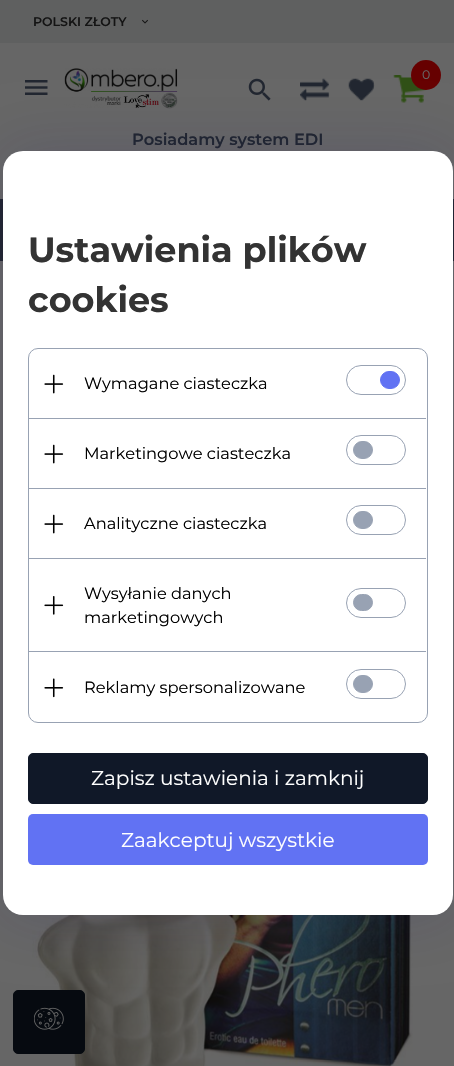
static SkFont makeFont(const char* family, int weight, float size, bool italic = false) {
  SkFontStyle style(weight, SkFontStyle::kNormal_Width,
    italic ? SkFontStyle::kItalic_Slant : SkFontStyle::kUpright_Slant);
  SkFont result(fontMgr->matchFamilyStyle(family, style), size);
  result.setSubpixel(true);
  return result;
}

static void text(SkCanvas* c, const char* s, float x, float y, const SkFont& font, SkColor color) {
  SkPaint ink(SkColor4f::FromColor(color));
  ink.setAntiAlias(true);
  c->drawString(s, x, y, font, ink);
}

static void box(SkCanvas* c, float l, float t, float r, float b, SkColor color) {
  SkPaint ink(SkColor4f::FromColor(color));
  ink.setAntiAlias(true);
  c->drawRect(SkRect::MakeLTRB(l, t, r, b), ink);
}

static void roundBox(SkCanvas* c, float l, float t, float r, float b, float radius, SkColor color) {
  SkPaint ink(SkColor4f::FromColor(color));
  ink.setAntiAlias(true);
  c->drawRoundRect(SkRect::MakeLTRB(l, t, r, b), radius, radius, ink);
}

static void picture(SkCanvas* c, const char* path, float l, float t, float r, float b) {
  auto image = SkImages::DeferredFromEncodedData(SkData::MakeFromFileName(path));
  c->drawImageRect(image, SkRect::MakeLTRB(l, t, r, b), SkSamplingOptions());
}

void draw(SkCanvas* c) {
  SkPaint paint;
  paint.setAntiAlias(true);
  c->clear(0xff666666);
  box(c, 0, 0, 454, 43, 0xff5f6060);
  SkFont face1 = makeFont("Montserrat", 600, 12.5f);
  text(c, "POLSKI ZŁOTY", 33, 26, face1, 0xff141414);
  picture(c, "img_01.png", 142, 19, 148, 24);
  picture(c, "img_02.png", 25, 80, 48, 95);
  picture(c, "img_03.png", 64, 68, 178, 109);
  picture(c, "img_04.png", 393, 75, 427, 103);
  paint.setColor(0xff660000);
  c->drawCircle(426, 75, 15, paint);
  SkFont face2 = makeFont("Montserrat", 400, 12.5f);
  text(c, "0", 422, 79, face2, 0xff666666);
  picture(c, "img_05.png", 300, 78, 330, 101);
  picture(c, "img_06.png", 348, 78, 375, 101);
  picture(c, "img_07.png", 248, 78, 271, 101);
  SkFont face3 = makeFont("Montserrat", 600, 16.25f);
  text(c, "Posiadamy system EDI", 132, 145, face3, 0xff20252f);
  box(c, 0, 199, 454, 261, 0xff20252f);
  picture(c, "img_08.png", 32, 915, 413, 1066);
  paint.setColor(0xff060a10);
  c->drawRoundRect(SkRect::MakeLTRB(13.5f, 990.5f, 84.5f, 1053.5f), 4.5f, 4.5f, paint);
  paint.setStyle(SkPaint::kStroke_Style);
  paint.setStrokeWidth(1);
  c->drawRoundRect(SkRect::MakeLTRB(13.5f, 990.5f, 84.5f, 1053.5f), 4.5f, 4.5f, paint);
  paint.setStyle(SkPaint::kFill_Style);
  paint.setColor(0x26211a69);
  paint.setMaskFilter(SkMaskFilter::MakeBlur(kNormal_SkBlurStyle, 30));
  c->drawRoundRect(SkRect::MakeLTRB(3, 151, 453, 915), 20, 20, paint);
  paint.setMaskFilter(nullptr);
  roundBox(c, 3, 151, 453, 915, 20, 0xffffffff);
  SkFont face4 = makeFont("Montserrat", 700, 35);
  text(c, "Ustawienia plików", 28, 262, face4, 0xff333333);
  text(c, "cookies", 28, 312, face4, 0xff333333);
  paint.setStyle(SkPaint::kStroke_Style);
  paint.setColor(0xff98a2b3);
  c->drawRoundRect(SkRect::MakeLTRB(28.5f, 348.5f, 427.5f, 722.5f), 9.5f, 9.5f, paint);
  picture(c, "img_09.png", 44, 374, 64, 394);
  SkFont face5 = makeFont("Montserrat", 400, 16.25f);
  text(c, "Wymagane ciasteczka", 84, 389, face5, 0xff000000);
  c->drawRoundRect(SkRect::MakeLTRB(346.5f, 365.5f, 405.5f, 394.5f), 14.5f, 14.5f, paint);
  paint.setStyle(SkPaint::kFill_Style);
  paint.setColor(0xff6172f3);
  c->drawRoundRect(SkRect::MakeLTRB(380.5f, 371.5f, 399.5f, 388.5f), 8.5f, 8.5f, paint);
  paint.setStyle(SkPaint::kStroke_Style);
  c->drawRoundRect(SkRect::MakeLTRB(380.5f, 371.5f, 399.5f, 388.5f), 8.5f, 8.5f, paint);
  box(c, 29, 418, 426, 419, 0xff98a2b3);
  picture(c, "img_09.png", 44, 444, 64, 464);
  text(c, "Marketingowe ciasteczka", 84, 459, face5, 0xff000000);
  paint.setColor(0xff98a2b3);
  c->drawRoundRect(SkRect::MakeLTRB(346.5f, 435.5f, 405.5f, 464.5f), 14.5f, 14.5f, paint);
  paint.setStyle(SkPaint::kFill_Style);
  c->drawRoundRect(SkRect::MakeLTRB(353.5f, 441.5f, 372.5f, 458.5f), 8.5f, 8.5f, paint);
  paint.setStyle(SkPaint::kStroke_Style);
  c->drawRoundRect(SkRect::MakeLTRB(353.5f, 441.5f, 372.5f, 458.5f), 8.5f, 8.5f, paint);
  box(c, 29, 488, 426, 489, 0xff98a2b3);
  picture(c, "img_09.png", 44, 514, 64, 534);
  text(c, "Analityczne ciasteczka", 84, 529, face5, 0xff000000);
  c->drawRoundRect(SkRect::MakeLTRB(346.5f, 505.5f, 405.5f, 534.5f), 14.5f, 14.5f, paint);
  paint.setStyle(SkPaint::kFill_Style);
  c->drawRoundRect(SkRect::MakeLTRB(353.5f, 511.5f, 372.5f, 528.5f), 8.5f, 8.5f, paint);
  paint.setStyle(SkPaint::kStroke_Style);
  c->drawRoundRect(SkRect::MakeLTRB(353.5f, 511.5f, 372.5f, 528.5f), 8.5f, 8.5f, paint);
  box(c, 29, 558, 426, 559, 0xff98a2b3);
  picture(c, "img_10.png", 44, 596, 64, 615);
  text(c, "Wysyłanie danych", 84, 599, face5, 0xff000000);
  text(c, "marketingowych", 84, 623, face5, 0xff000000);
  c->drawRoundRect(SkRect::MakeLTRB(346.5f, 588.5f, 405.5f, 617.5f), 14.5f, 14.5f, paint);
  paint.setStyle(SkPaint::kFill_Style);
  c->drawRoundRect(SkRect::MakeLTRB(353.5f, 594.5f, 372.5f, 610.5f), 8, 8, paint);
  paint.setStyle(SkPaint::kStroke_Style);
  c->drawRoundRect(SkRect::MakeLTRB(353.5f, 594.5f, 372.5f, 610.5f), 8, 8, paint);
  box(c, 29, 651, 426, 652, 0xff98a2b3);
  picture(c, "img_11.png", 44, 678, 64, 698);
  text(c, "Reklamy spersonalizowane", 84, 693, face5, 0xff000000);
  c->drawRoundRect(SkRect::MakeLTRB(346.5f, 669.5f, 405.5f, 698.5f), 14.5f, 14.5f, paint);
  paint.setStyle(SkPaint::kFill_Style);
  c->drawRoundRect(SkRect::MakeLTRB(353.5f, 675.5f, 372.5f, 692.5f), 8.5f, 8.5f, paint);
  paint.setStyle(SkPaint::kStroke_Style);
  c->drawRoundRect(SkRect::MakeLTRB(353.5f, 675.5f, 372.5f, 692.5f), 8.5f, 8.5f, paint);
  paint.setStyle(SkPaint::kFill_Style);
  paint.setColor(0xff101828);
  c->drawRoundRect(SkRect::MakeLTRB(28.5f, 753.5f, 427.5f, 803.5f), 4.5f, 4.5f, paint);
  paint.setStyle(SkPaint::kStroke_Style);
  c->drawRoundRect(SkRect::MakeLTRB(28.5f, 753.5f, 427.5f, 803.5f), 4.5f, 4.5f, paint);
  SkFont face6 = makeFont("Montserrat", 400, 20);
  text(c, "Zapisz ustawienia i zamknij", 91, 785, face6, 0xffffffff);
  roundBox(c, 28, 814, 428, 865, 5, 0xff6172f3);
  text(c, "Zaakceptuj wszystkie", 121, 847, face6, 0xffffffff);
  picture(c, "img_12.png", 34, 1007, 64, 1030);
}
